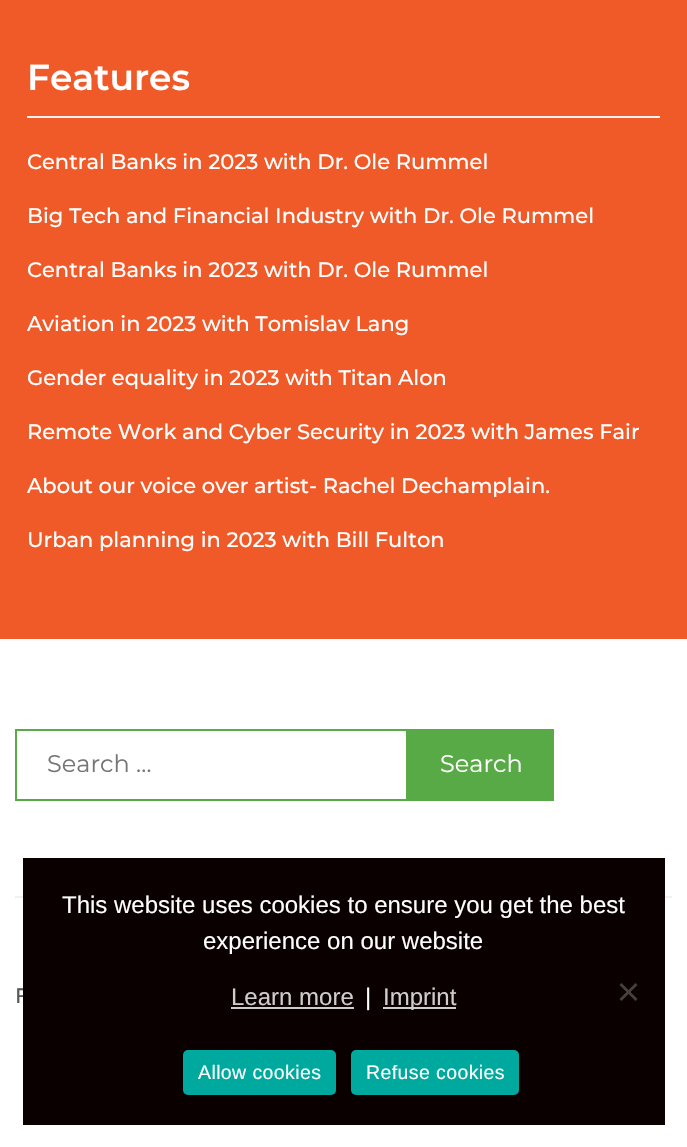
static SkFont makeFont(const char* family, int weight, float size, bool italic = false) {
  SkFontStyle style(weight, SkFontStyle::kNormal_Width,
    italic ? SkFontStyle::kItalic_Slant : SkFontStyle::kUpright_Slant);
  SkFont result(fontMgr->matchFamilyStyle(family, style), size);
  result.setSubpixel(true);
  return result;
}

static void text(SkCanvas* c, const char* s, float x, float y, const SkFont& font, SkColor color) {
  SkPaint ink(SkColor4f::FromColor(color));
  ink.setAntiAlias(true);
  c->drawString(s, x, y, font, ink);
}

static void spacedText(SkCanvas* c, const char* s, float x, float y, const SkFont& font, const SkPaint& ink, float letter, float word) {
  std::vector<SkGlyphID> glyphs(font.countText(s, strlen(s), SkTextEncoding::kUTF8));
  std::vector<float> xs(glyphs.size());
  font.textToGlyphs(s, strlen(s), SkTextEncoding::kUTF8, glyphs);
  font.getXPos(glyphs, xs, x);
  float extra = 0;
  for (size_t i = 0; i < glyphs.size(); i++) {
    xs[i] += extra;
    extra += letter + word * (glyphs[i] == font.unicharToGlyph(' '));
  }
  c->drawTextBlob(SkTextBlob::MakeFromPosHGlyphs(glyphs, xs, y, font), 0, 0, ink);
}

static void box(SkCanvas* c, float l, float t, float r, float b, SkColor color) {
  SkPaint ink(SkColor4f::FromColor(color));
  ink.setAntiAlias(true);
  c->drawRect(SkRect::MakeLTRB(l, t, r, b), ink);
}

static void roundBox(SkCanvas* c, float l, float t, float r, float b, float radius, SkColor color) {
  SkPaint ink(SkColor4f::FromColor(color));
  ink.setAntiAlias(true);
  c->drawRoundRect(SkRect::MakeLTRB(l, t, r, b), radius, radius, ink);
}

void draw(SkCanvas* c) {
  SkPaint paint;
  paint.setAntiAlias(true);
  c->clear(0xffffffff);
  box(c, 0, 0, 687, 639, 0xfff05a28);
  box(c, 27, 116, 660, 118, 0xfff0f0f0);
  SkFont face1 = makeFont("Montserrat", 600, 36);
  text(c, "Features", 27, 90, face1, 0xffffffff);
  SkFont face2 = makeFont("Montserrat", 500, 21);
  text(c, "Central Banks in 2023 with Dr. Ole Rummel", 27, 169, face2, 0xffffffff);
  text(c, "Big Tech and Financial Industry with Dr. Ole Rummel", 27, 223, face2, 0xffffffff);
  text(c, "Central Banks in 2023 with Dr. Ole Rummel", 27, 277, face2, 0xffffffff);
  text(c, "Aviation in 2023 with Tomislav Lang", 27, 331, face2, 0xffffffff);
  text(c, "Gender equality in 2023 with Titan Alon", 27, 385, face2, 0xffffffff);
  text(c, "Remote Work and Cyber Security in 2023 with James Fair", 27, 439, face2, 0xffffffff);
  text(c, "About our voice over artist- Rachel Dechamplain.", 27, 493, face2, 0xffffffff);
  text(c, "Urban planning in 2023 with Bill Fulton", 27, 547, face2, 0xffffffff);
  paint.setStyle(SkPaint::kStroke_Style);
  paint.setStrokeWidth(2);
  paint.setColor(0xff58aa47);
  c->drawRect(SkRect::MakeLTRB(16, 730, 407, 800), paint);
  SkFont face3 = makeFont("Montserrat", 400, 24);
  text(c, "Search …", 47, 772, face3, 0xff757575);
  box(c, 408, 729, 554, 801, 0xff58aa47);
  text(c, "Search", 440, 772, face3, 0xffffffff);
  box(c, 15, 896, 672, 898, 0xfff0f0f0);
  text(c, "F", 15, 1003, face2, 0xff585858);
  box(c, 23, 858, 665, 1125, 0xff0a0000);
  SkFont face4 = makeFont("Liberation Sans", 400, 24);
  text(c, "This website uses cookies to ensure you get the best", 62, 913, face4, 0xffffffff);
  text(c, "experience on our website", 203, 949, face4, 0xffffffff);
  text(c, "Learn more", 231, 1005, face4, 0xffcecccc);
  box(c, 231, 1007, 354, 1009, 0xffcecccc);
  text(c, "|", 365, 1005, face4, 0xffffffff);
  box(c, 383, 1007, 456, 1009, 0xffcecccc);
  text(c, "Imprint", 383, 1005, face4, 0xffcecccc);
  paint.setStyle(SkPaint::kFill_Style);
  paint.setColor(0xff454040);
  c->drawPath(SkPathBuilder().moveTo(635.5f, 983).lineTo(637.5f, 985).lineTo(621.5f, 1001).lineTo(619.5f, 999).close().detach(), paint);
  c->drawPath(SkPathBuilder().moveTo(619.5f, 985).lineTo(621.5f, 983).lineTo(637.5f, 999).lineTo(635.5f, 1001).close().detach(), paint);
  roundBox(c, 183, 1050, 336, 1095, 5, 0xff00a99d);
  SkFont face5 = makeFont("Liberation Sans", 400, 19.5f);
  paint.setColor(0xffffffff);
  spacedText(c, "Allow cookies", 198, 1079, face5, paint, 0.4f, 0);
  roundBox(c, 351, 1050, 519, 1095, 5, 0xff00a99d);
  spacedText(c, "Refuse cookies", 366, 1079, face5, paint, 0.4f, 0);
}
